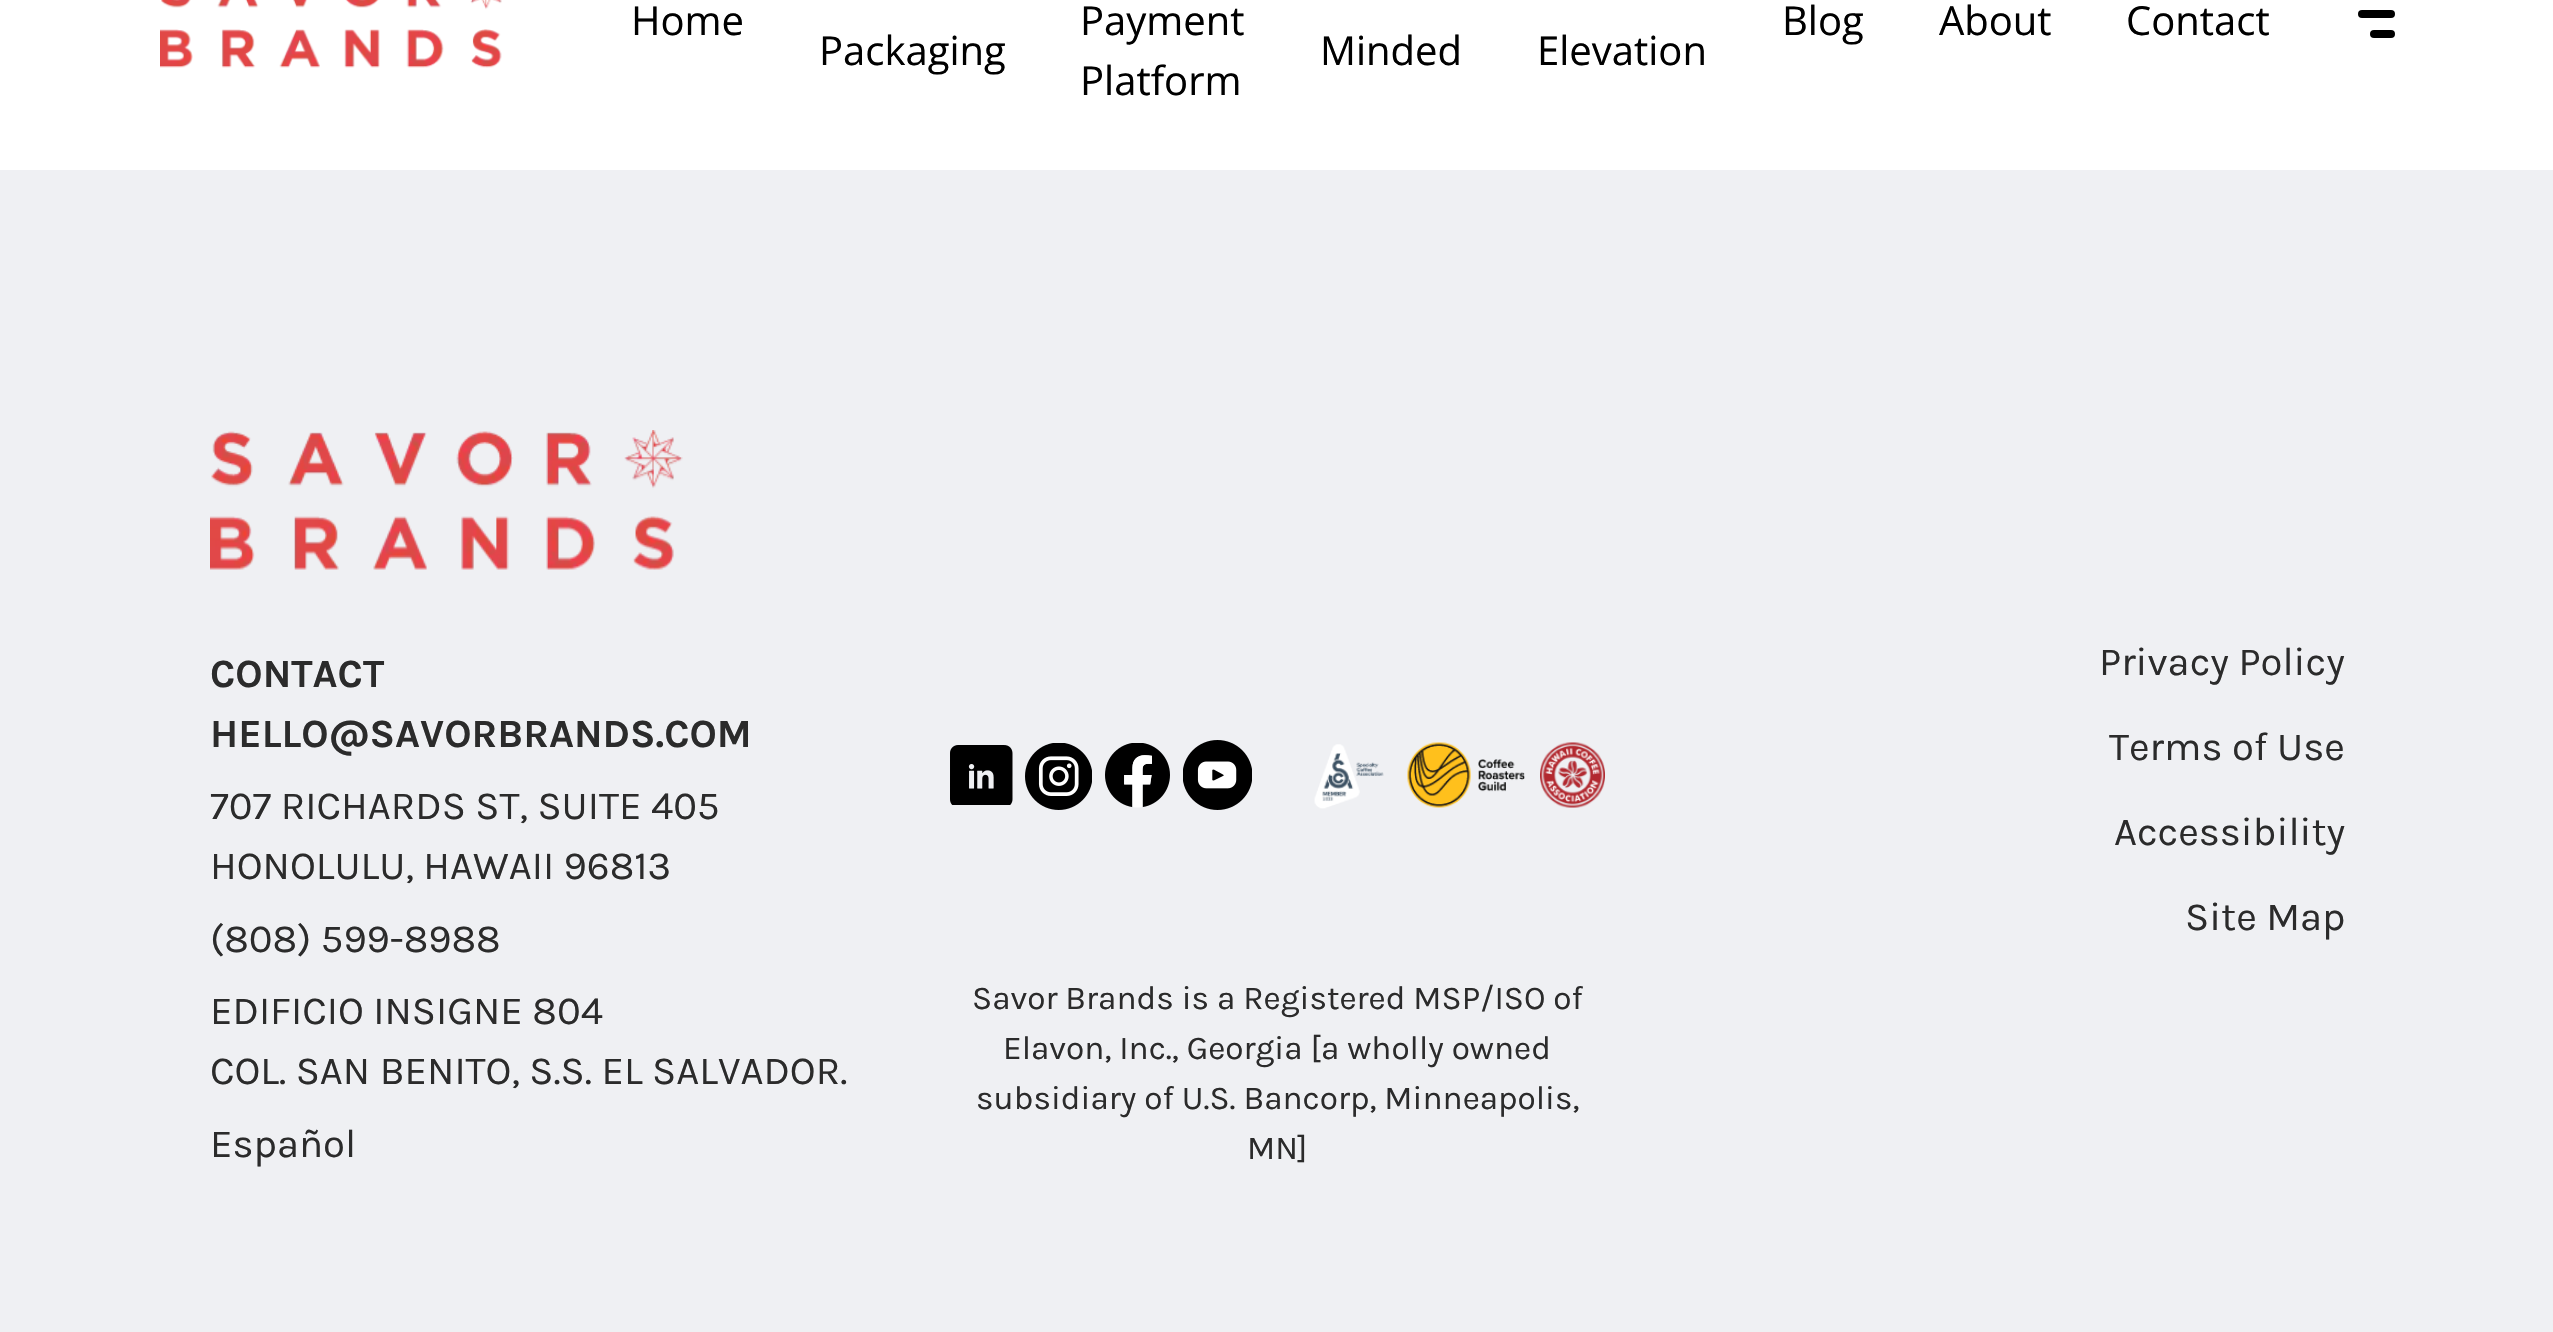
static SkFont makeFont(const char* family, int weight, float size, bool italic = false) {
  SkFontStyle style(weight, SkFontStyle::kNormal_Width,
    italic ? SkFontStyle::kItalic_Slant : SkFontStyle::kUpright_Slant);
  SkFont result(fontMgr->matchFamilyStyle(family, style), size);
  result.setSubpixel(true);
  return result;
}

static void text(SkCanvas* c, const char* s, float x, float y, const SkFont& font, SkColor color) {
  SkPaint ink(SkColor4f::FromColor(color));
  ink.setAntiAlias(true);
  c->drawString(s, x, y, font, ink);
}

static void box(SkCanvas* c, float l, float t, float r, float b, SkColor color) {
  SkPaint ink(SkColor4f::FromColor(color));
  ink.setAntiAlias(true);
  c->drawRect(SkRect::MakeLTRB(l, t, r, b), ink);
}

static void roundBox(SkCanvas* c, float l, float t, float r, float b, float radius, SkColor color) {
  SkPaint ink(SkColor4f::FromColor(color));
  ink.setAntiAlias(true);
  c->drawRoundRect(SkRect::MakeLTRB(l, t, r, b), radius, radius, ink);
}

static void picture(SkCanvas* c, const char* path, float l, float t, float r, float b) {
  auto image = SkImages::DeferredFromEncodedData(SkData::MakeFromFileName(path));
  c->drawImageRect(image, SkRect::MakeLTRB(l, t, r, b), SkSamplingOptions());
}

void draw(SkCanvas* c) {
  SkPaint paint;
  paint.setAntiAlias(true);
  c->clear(0xffeff0f3);
  box(c, 0, 0, 2553, 170, 0xffffffff);
  picture(c, "img_01.png", 160, 0, 502, 68);
  SkFont face1 = makeFont("Open Sans", 400, 40);
  text(c, "Home", 631, 35, face1, 0xff000000);
  text(c, "Payment", 1080, 35, face1, 0xff000000);
  text(c, "Platform", 1080, 95, face1, 0xff000000);
  text(c, "Blog", 1782, 35, face1, 0xff000000);
  text(c, "About", 1939, 35, face1, 0xff000000);
  text(c, "Contact", 2126, 35, face1, 0xff000000);
  roundBox(c, 2358, 10, 2395, 18, 4, 0xff000000);
  roundBox(c, 2370, 30, 2395, 38, 4, 0xff000000);
  text(c, "Packaging", 819, 65, face1, 0xff000000);
  text(c, "Minded", 1320, 65, face1, 0xff000000);
  text(c, "Elevation", 1537, 65, face1, 0xff000000);
  picture(c, "img_02.png", 210, 430, 683, 570);
  SkFont face2 = makeFont("Karla", 700, 40);
  text(c, "CONTACT", 210, 687, face2, 0xff2b2b2b);
  text(c, "HELLO@SAVORBRANDS.COM", 210, 747, face2, 0xff2b2b2b);
  SkFont face3 = makeFont("Karla", 400, 40);
  text(c, "707 RICHARDS ST, SUITE 405", 210, 819, face3, 0xff2b2b2b);
  text(c, "HONOLULU, HAWAII 96813", 210, 879, face3, 0xff2b2b2b);
  text(c, "(808) 599-8988", 210, 952, face3, 0xff2b2b2b);
  text(c, "EDIFICIO INSIGNE 804", 210, 1024, face3, 0xff2b2b2b);
  text(c, "COL. SAN BENITO, S.S. EL SALVADOR.", 210, 1084, face3, 0xff2b2b2b);
  text(c, "Español", 210, 1157, face3, 0xff2b2b2b);
  picture(c, "img_03.png", 950, 745, 1013, 805);
  picture(c, "img_04.png", 1025, 743, 1092, 810);
  picture(c, "img_05.png", 1105, 743, 1170, 808);
  picture(c, "img_06.png", 1183, 740, 1252, 810);
  picture(c, "img_07.png", 1314, 744, 1384, 809);
  picture(c, "img_08.png", 1407, 742, 1525, 808);
  picture(c, "img_09.png", 1540, 742, 1605, 808);
  SkFont face4 = makeFont("Karla", 400, 33.3f);
  text(c, "Savor Brands is a Registered MSP/ISO of", 972, 1009, face4, 0xff2b2b2b);
  text(c, "Elavon, Inc., Georgia [a wholly owned", 1003, 1059, face4, 0xff2b2b2b);
  text(c, "subsidiary of U.S. Bancorp, Minneapolis,", 976, 1109, face4, 0xff2b2b2b);
  text(c, "MN]", 1247, 1159, face4, 0xff2b2b2b);
  text(c, "Privacy Policy", 2099, 675, face3, 0xff2b2b2b);
  text(c, "Terms of Use", 2109, 760, face3, 0xff2b2b2b);
  text(c, "Accessibility", 2114, 845, face3, 0xff2b2b2b);
  text(c, "Site Map", 2185, 930, face3, 0xff2b2b2b);
}
